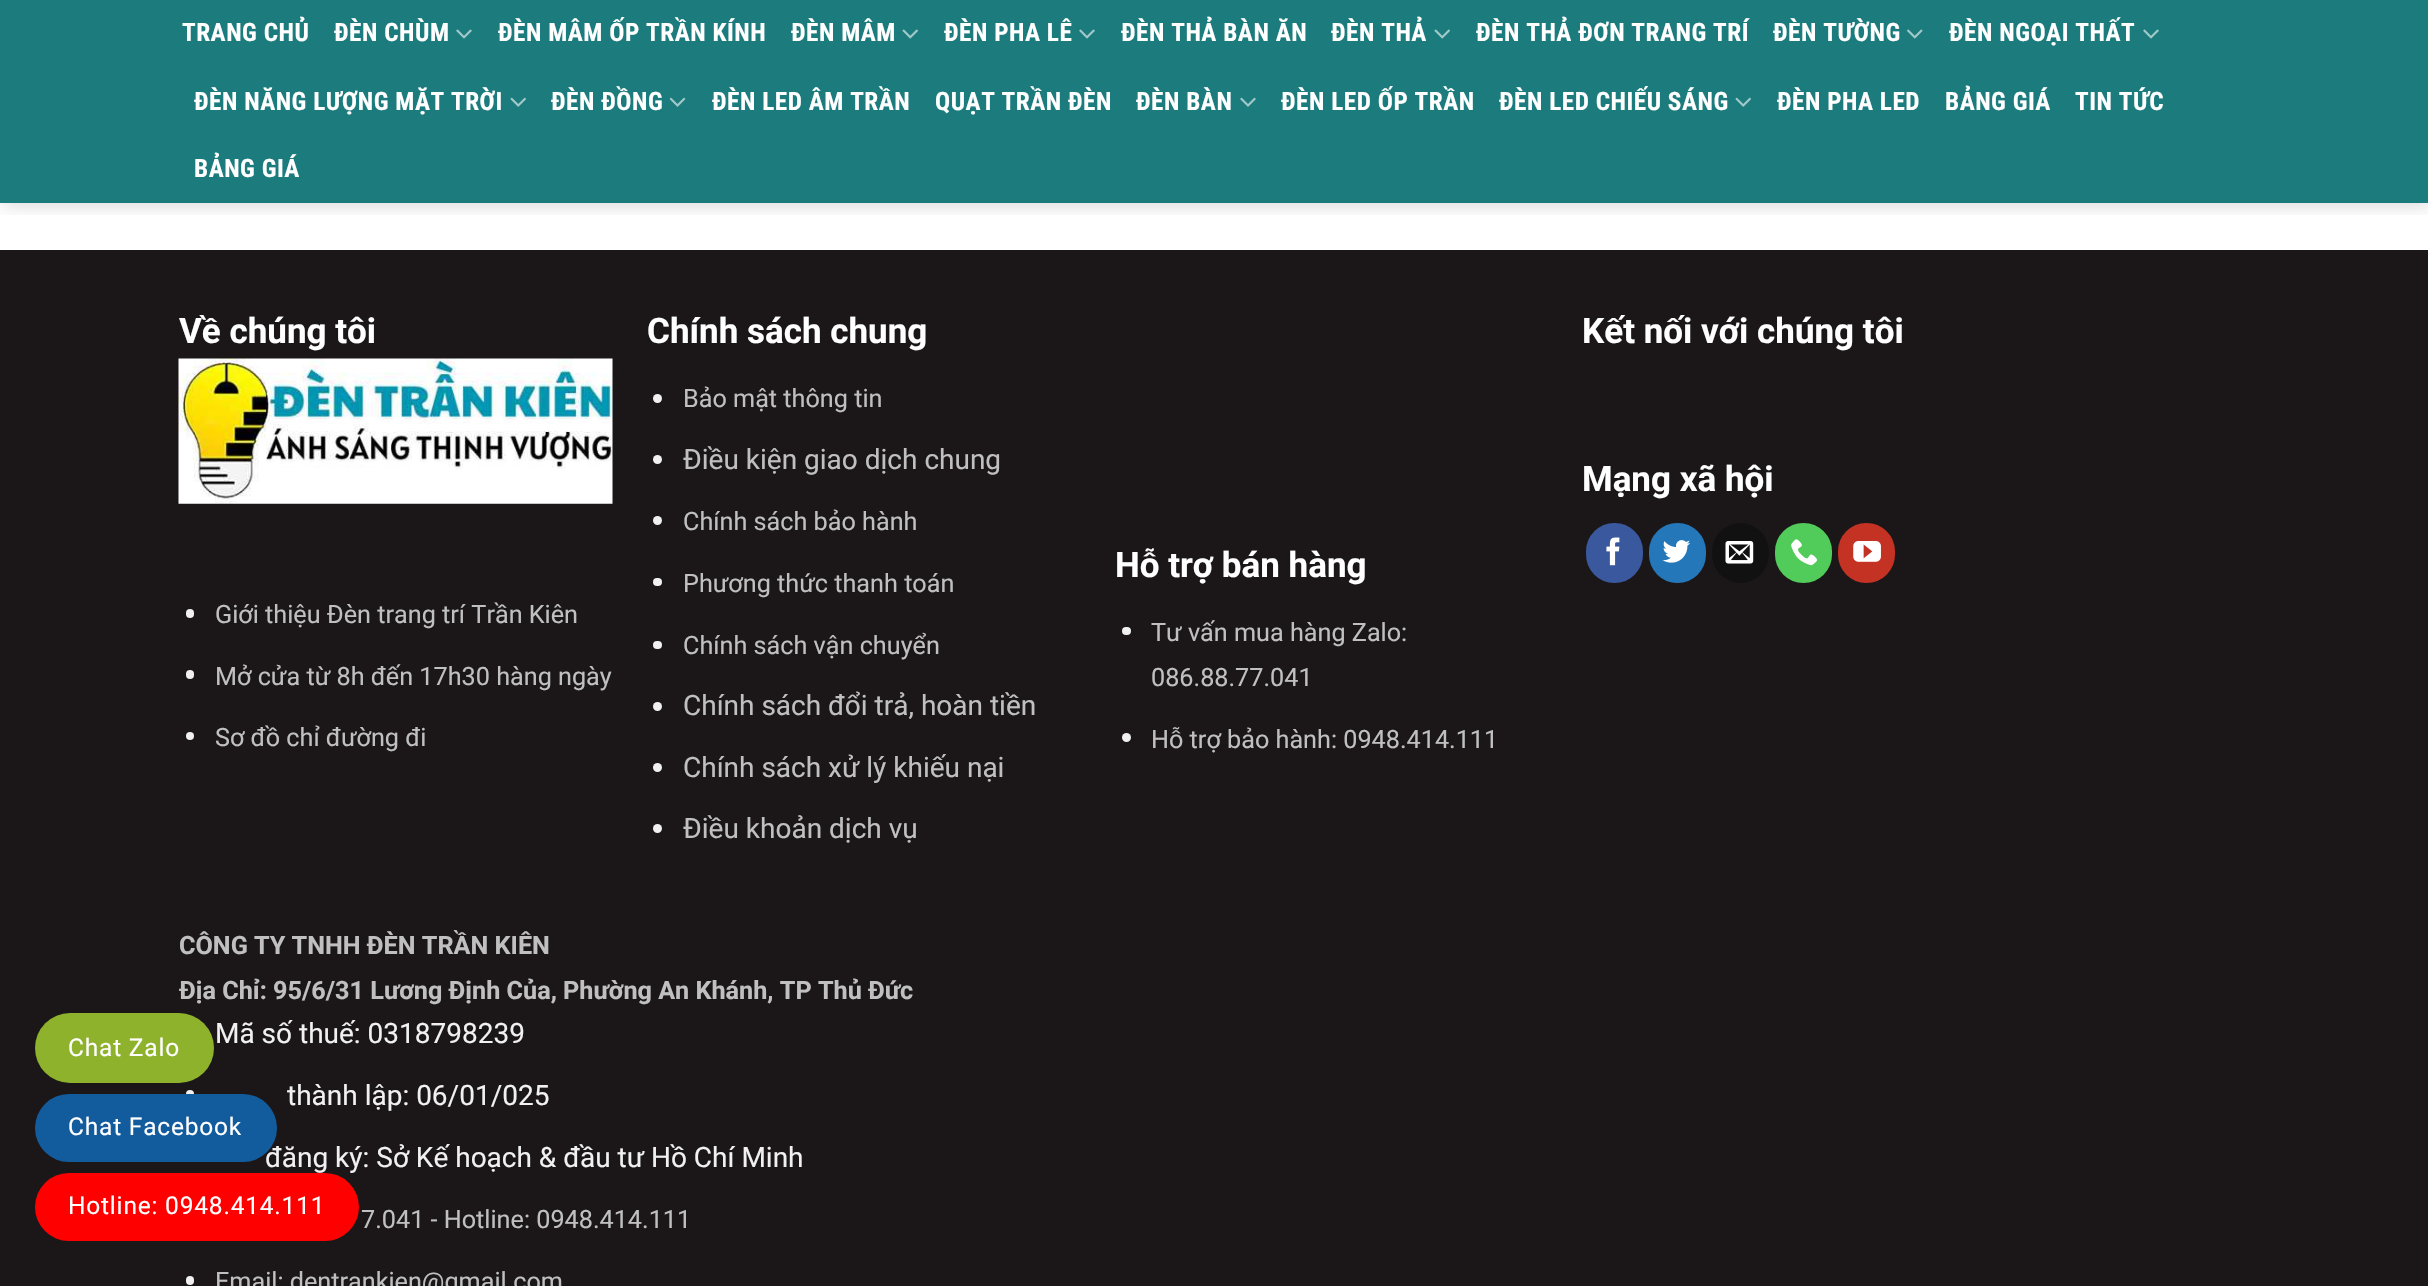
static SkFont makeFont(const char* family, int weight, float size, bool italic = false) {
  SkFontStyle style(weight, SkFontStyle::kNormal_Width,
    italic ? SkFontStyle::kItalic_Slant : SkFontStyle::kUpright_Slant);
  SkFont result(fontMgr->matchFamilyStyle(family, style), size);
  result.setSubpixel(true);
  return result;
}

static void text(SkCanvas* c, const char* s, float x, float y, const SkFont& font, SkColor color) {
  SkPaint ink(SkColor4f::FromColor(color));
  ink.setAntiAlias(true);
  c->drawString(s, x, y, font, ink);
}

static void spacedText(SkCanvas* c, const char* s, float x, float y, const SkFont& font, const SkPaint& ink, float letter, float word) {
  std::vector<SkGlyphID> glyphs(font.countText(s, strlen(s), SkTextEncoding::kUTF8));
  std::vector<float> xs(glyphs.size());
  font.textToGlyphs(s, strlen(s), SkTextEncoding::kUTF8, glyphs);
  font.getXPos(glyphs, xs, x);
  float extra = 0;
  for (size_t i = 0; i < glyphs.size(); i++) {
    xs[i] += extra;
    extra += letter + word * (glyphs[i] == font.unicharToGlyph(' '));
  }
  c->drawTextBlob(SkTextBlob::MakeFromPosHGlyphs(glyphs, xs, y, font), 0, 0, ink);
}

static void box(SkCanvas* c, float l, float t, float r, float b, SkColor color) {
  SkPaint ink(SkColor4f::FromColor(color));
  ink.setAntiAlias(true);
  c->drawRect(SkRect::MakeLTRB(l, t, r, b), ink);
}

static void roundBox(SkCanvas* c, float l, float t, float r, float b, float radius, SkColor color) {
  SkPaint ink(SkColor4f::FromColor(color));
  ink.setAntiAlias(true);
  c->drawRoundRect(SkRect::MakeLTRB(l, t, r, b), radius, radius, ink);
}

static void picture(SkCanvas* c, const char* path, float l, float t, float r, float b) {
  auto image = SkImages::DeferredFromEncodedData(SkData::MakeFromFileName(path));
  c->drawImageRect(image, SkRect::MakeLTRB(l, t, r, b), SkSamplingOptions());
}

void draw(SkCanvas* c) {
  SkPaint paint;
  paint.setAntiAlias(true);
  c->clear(0xffffffff);
  box(c, 0, 0, 2428, 203, 0xff1c7b7d);
  picture(c, "img_09.png", 2196, 107, 2229, 141);
  c->save();
  c->clipRect(SkRect::MakeLTRB(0, 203, 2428, 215));
  paint.setColor(0x26000000);
  paint.setMaskFilter(SkMaskFilter::MakeBlur(kNormal_SkBlurStyle, 9));
  c->drawRect(SkRect::MakeLTRB(2, 2, 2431, 205), paint);
  paint.setMaskFilter(nullptr);
  c->restore();
  SkFont face1 = makeFont("Roboto Condensed", 700, 25.2f);
  paint.setColor(0xffffffff);
  spacedText(c, "TRANG CHỦ", 182, 41, face1, paint, 0.5f, 0);
  spacedText(c, "ĐÈN CHÙM", 334, 41, face1, paint, 0.5f, 0);
  picture(c, "img_01.png", 456, 29, 472, 39);
  spacedText(c, "ĐÈN MÂM ỐP TRẦN KÍNH", 498, 41, face1, paint, 0.5f, 0);
  spacedText(c, "ĐÈN MÂM", 791, 41, face1, paint, 0.5f, 0);
  picture(c, "img_02.png", 902, 29, 918, 39);
  spacedText(c, "ĐÈN PHA LÊ", 944, 41, face1, paint, 0.5f, 0);
  picture(c, "img_03.png", 1079, 29, 1095, 39);
  spacedText(c, "ĐÈN THẢ BÀN ĂN", 1121, 41, face1, paint, 0.5f, 0);
  spacedText(c, "ĐÈN THẢ", 1331, 41, face1, paint, 0.5f, 0);
  picture(c, "img_04.png", 1434, 29, 1450, 39);
  spacedText(c, "ĐÈN THẢ ĐƠN TRANG TRÍ", 1476, 41, face1, paint, 0.5f, 0);
  spacedText(c, "ĐÈN TƯỜNG", 1773, 41, face1, paint, 0.5f, 0);
  picture(c, "img_05.png", 1907, 29, 1923, 39);
  spacedText(c, "ĐÈN NGOẠI THẤT", 1949, 41, face1, paint, 0.5f, 0);
  picture(c, "img_01.png", 2143, 29, 2159, 39);
  spacedText(c, "ĐÈN NĂNG LƯỢNG MẶT TRỜI", 194, 110, face1, paint, 0.5f, 0);
  picture(c, "img_06.png", 510, 97, 526, 107);
  spacedText(c, "ĐÈN ĐỒNG", 551, 110, face1, paint, 0.5f, 0);
  picture(c, "img_07.png", 669, 97, 686, 107);
  spacedText(c, "ĐÈN LED ÂM TRẦN", 712, 110, face1, paint, 0.5f, 0);
  spacedText(c, "QUẠT TRẦN ĐÈN", 935, 110, face1, paint, 0.5f, 0);
  spacedText(c, "ĐÈN BÀN", 1136, 110, face1, paint, 0.5f, 0);
  picture(c, "img_08.png", 1240, 97, 1256, 107);
  spacedText(c, "ĐÈN LED ỐP TRẦN", 1281, 110, face1, paint, 0.5f, 0);
  spacedText(c, "ĐÈN LED CHIẾU SÁNG", 1499, 110, face1, paint, 0.5f, 0);
  picture(c, "img_06.png", 1735, 97, 1751, 107);
  spacedText(c, "ĐÈN PHA LED", 1777, 110, face1, paint, 0.5f, 0);
  spacedText(c, "BẢNG GIÁ", 1945, 110, face1, paint, 0.5f, 0);
  spacedText(c, "TIN TỨC", 2075, 110, face1, paint, 0.5f, 0);
  spacedText(c, "BẢNG GIÁ", 194, 177, face1, paint, 0.5f, 0);
  box(c, 0, 250, 2428, 1286, 0xff1b1718);
  SkFont face2 = makeFont("Roboto", 700, 35);
  text(c, "Về chúng tôi", 179, 343, face2, 0xffffffff);
  picture(c, "img_10.png", 178, 358, 613, 504);
  roundBox(c, 186, 609, 194, 618, 4, 0xfff1f1f1);
  SkFont face3 = makeFont("Roboto", 400, 25.2f);
  text(c, "Giới thiệu Đèn trang trí Trần Kiên", 215, 623, face3, 0xffc0c0c0);
  roundBox(c, 186, 670, 194, 679, 4, 0xfff1f1f1);
  text(c, "Mở cửa từ 8h đến 17h30 hàng ngày", 215, 685, face3, 0xffc0c0c0);
  paint.setColor(0xfff1f1f1);
  c->drawCircle(190, 736, 4, paint);
  text(c, "Sơ đồ chỉ đường đi", 215, 746, face3, 0xffc0c0c0);
  text(c, "Chính sách chung", 647, 343, face2, 0xffffffff);
  c->drawCircle(657.5f, 398.5f, 4.5f, paint);
  text(c, "Bảo mật thông tin", 683, 407, face3, 0xffc0c0c0);
  c->drawCircle(657.5f, 459.5f, 4.5f, paint);
  SkFont face4 = makeFont("Roboto", 400, 28);
  text(c, "Điều kiện giao dịch chung", 683, 469, face4, 0xffc0c0c0);
  c->drawCircle(657.5f, 520.5f, 4.5f, paint);
  text(c, "Chính sách bảo hành", 683, 530, face3, 0xffc0c0c0);
  roundBox(c, 653, 578, 662, 586, 4, 0xfff1f1f1);
  text(c, "Phương thức thanh toán", 683, 592, face3, 0xffc0c0c0);
  roundBox(c, 653, 641, 662, 649, 4, 0xfff1f1f1);
  text(c, "Chính sách vận chuyển", 683, 654, face3, 0xffc0c0c0);
  c->drawCircle(657.5f, 706.5f, 4.5f, paint);
  text(c, "Chính sách đổi trả, hoàn tiền", 683, 715, face4, 0xffc0c0c0);
  c->drawCircle(657.5f, 767.5f, 4.5f, paint);
  text(c, "Chính sách xử lý khiếu nại", 683, 777, face4, 0xffc0c0c0);
  c->drawCircle(657.5f, 828.5f, 4.5f, paint);
  text(c, "Điều khoản dịch vụ", 683, 838, face4, 0xffc0c0c0);
  text(c, "Hỗ trợ bán hàng", 1115, 577, face2, 0xffffffff);
  roundBox(c, 1122, 627, 1131, 635, 4, 0xfff1f1f1);
  text(c, "Tư vấn mua hàng Zalo:", 1151, 641, face3, 0xffc0c0c0);
  text(c, "086.88.77.041", 1151, 686, face3, 0xffc0c0c0);
  c->drawCircle(1126.5f, 737.5f, 4.5f, paint);
  text(c, "Hỗ trợ bảo hành: 0948.414.111", 1151, 748, face3, 0xffc0c0c0);
  SkFont face5 = makeFont("Roboto", 700, 25.2f);
  text(c, "CÔNG TY TNHH ĐÈN TRẦN KIÊN", 179, 954, face5, 0xffc0c0c0);
  text(c, "Địa Chỉ: 95/6/31 Lương Định Của, Phường An Khánh, TP Thủ Đức", 179, 999, face5, 0xffc0c0c0);
  text(c, "Mã số thuế: 0318798239", 215, 1043, face4, 0xfff1f1f1);
  roundBox(c, 186, 1090, 194, 1099, 4, 0xfff1f1f1);
  text(c, "thành lập: 06/01/025", 287, 1105, face4, 0xfff1f1f1);
  text(c, "đăng ký: Sở Kế hoạch & đầu tư Hồ Chí Minh", 265, 1167, face4, 0xfff1f1f1);
  text(c, "7.041 - Hotline: 0948.414.111", 361, 1228, face3, 0xffc0c0c0);
  roundBox(c, 186, 1276, 194, 1285, 4, 0xfff1f1f1);
  text(c, "Email: dentrankien@gmail.com", 215, 1290, face3, 0xffc0c0c0);
  text(c, "Kết nối với chúng tôi", 1582, 343, face2, 0xffffffff);
  text(c, "Mạng xã hội", 1582, 491, face2, 0xffffffff);
  paint.setColor(0xff3a589d);
  c->drawRoundRect(SkRect::MakeLTRB(1587, 524, 1642, 582), 27.5f, 27.5f, paint);
  paint.setStyle(SkPaint::kStroke_Style);
  paint.setStrokeWidth(2);
  c->drawRoundRect(SkRect::MakeLTRB(1587, 524, 1642, 582), 27.5f, 27.5f, paint);
  picture(c, "img_11.png", 1606, 537, 1620, 566);
  paint.setStyle(SkPaint::kFill_Style);
  paint.setColor(0xff2478ba);
  c->drawRoundRect(SkRect::MakeLTRB(1650, 524, 1705, 582), 27.5f, 27.5f, paint);
  paint.setStyle(SkPaint::kStroke_Style);
  c->drawRoundRect(SkRect::MakeLTRB(1650, 524, 1705, 582), 27.5f, 27.5f, paint);
  picture(c, "img_12.png", 1662, 540, 1690, 563);
  roundBox(c, 1712, 523, 1769, 583, 28.5f, 0xff111111);
  picture(c, "img_13.png", 1725, 541, 1754, 564);
  paint.setStyle(SkPaint::kFill_Style);
  paint.setColor(0xff51cb5a);
  c->drawRoundRect(SkRect::MakeLTRB(1776, 524, 1831, 582), 27.5f, 27.5f, paint);
  paint.setStyle(SkPaint::kStroke_Style);
  c->drawRoundRect(SkRect::MakeLTRB(1776, 524, 1831, 582), 27.5f, 27.5f, paint);
  picture(c, "img_14.png", 1791, 539, 1817, 566);
  paint.setStyle(SkPaint::kFill_Style);
  paint.setColor(0xffc33223);
  c->drawRoundRect(SkRect::MakeLTRB(1839, 524, 1894, 582), 27.5f, 27.5f, paint);
  paint.setStyle(SkPaint::kStroke_Style);
  c->drawRoundRect(SkRect::MakeLTRB(1839, 524, 1894, 582), 27.5f, 27.5f, paint);
  picture(c, "img_15.png", 1853, 541, 1881, 562);
  roundBox(c, 35, 1013, 214, 1083, 35, 0xff8eb22b);
  SkFont face6 = makeFont("Roboto", 400, 24.5f);
  paint.setStyle(SkPaint::kFill_Style);
  paint.setColor(0xffffffff);
  spacedText(c, "Chat Zalo", 68, 1056, face6, paint, 0.8f, 0);
  roundBox(c, 35, 1094, 277, 1162, 34, 0xff125c9e);
  spacedText(c, "Chat Facebook", 68, 1135, face6, paint, 0.8f, 0);
  roundBox(c, 35, 1173, 359, 1241, 34, 0xffff0000);
  spacedText(c, "Hotline: 0948.414.111", 68, 1214, face6, paint, 0.8f, 0);
}
